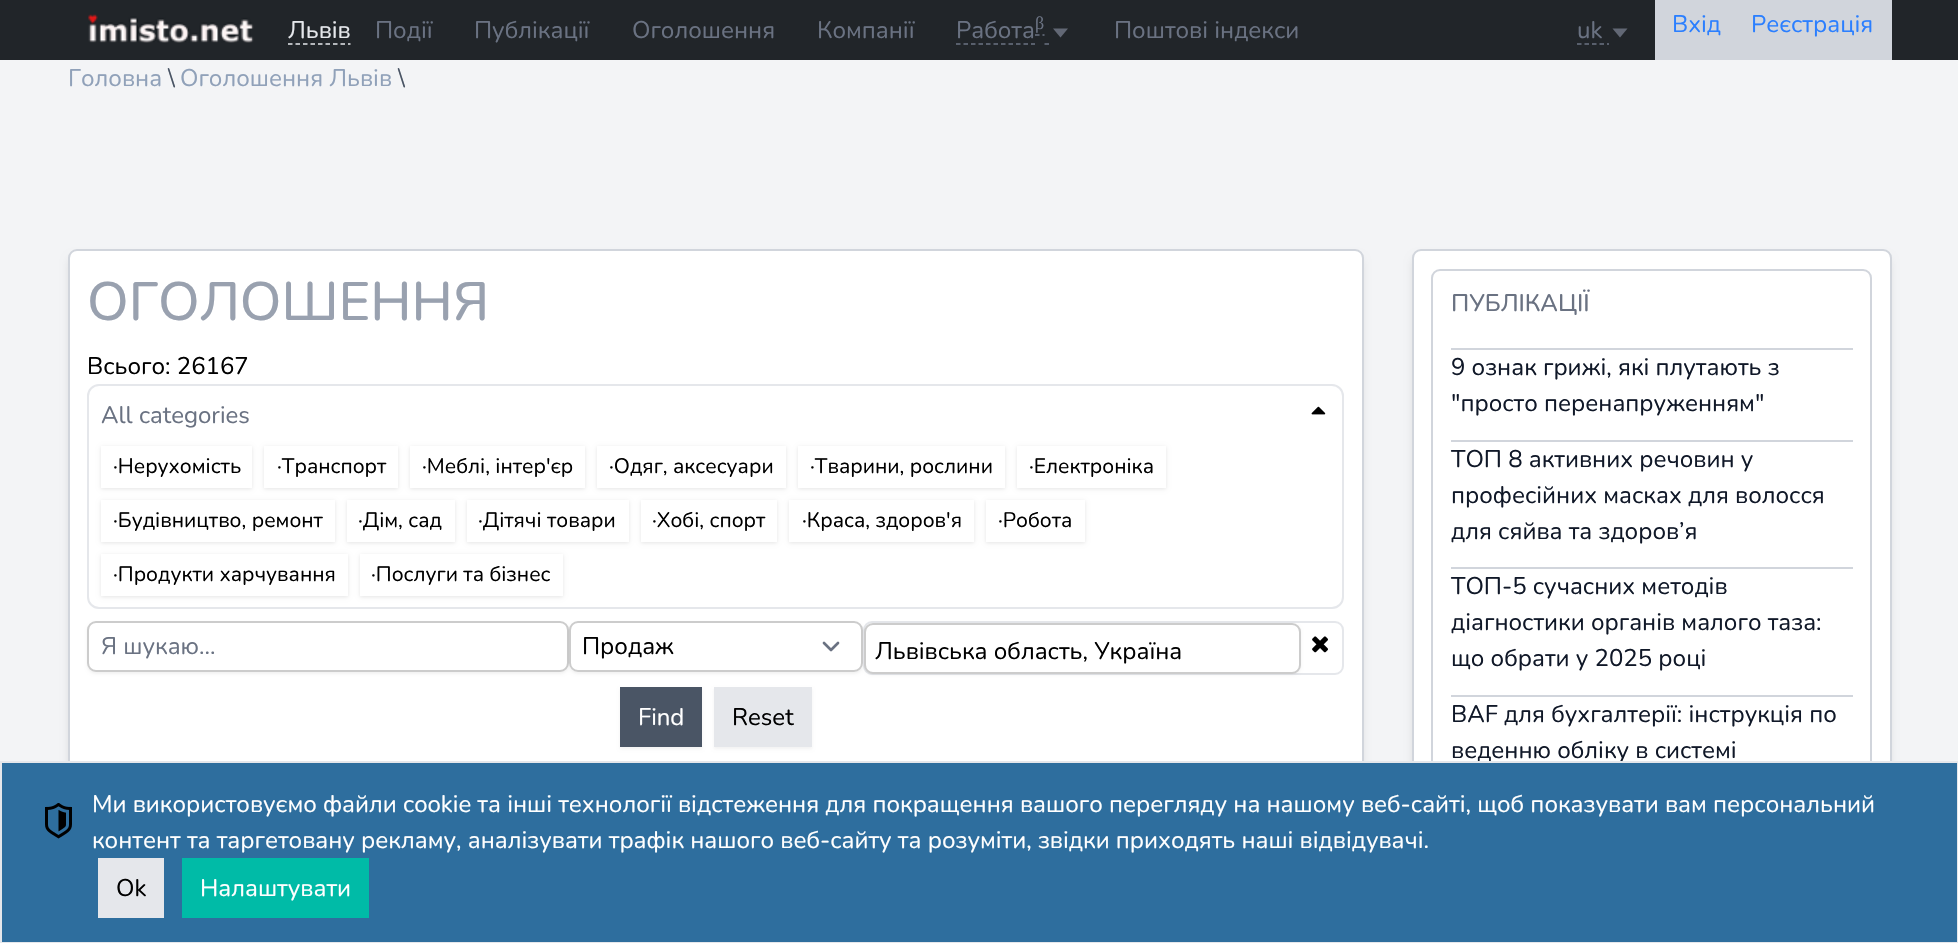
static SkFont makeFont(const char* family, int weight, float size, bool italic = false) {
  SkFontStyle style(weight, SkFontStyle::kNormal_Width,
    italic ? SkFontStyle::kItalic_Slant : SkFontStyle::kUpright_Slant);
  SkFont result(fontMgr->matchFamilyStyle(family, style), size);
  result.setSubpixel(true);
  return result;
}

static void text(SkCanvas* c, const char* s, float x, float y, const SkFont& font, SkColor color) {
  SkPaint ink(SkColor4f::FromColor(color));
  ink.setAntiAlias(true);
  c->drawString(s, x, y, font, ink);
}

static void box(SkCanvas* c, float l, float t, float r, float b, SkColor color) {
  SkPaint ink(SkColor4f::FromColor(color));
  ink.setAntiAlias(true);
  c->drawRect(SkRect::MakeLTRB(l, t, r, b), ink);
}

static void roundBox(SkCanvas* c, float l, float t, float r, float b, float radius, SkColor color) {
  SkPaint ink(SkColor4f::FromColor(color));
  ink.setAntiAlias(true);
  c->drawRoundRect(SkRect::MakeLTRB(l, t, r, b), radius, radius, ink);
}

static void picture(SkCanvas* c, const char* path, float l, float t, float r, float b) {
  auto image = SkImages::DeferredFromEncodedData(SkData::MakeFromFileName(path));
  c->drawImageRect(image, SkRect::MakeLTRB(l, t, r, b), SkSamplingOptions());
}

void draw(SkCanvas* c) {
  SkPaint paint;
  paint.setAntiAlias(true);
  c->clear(0xfff3f4f6);
  box(c, 0, 0, 1958, 60, 0xff212529);
  picture(c, "img_01.png", 88, 14, 254, 43);
  SkFont face1 = makeFont("Nunito", 400, 24);
  text(c, "Львів", 288, 38, face1, 0xffe5e7eb);
  paint.setStyle(SkPaint::kStroke_Style);
  paint.setStrokeWidth(1.5f);
  paint.setColor(0xffe5e7eb);
  paint.setPathEffect(SkDashPathEffect::Make({{4.5f, 3}}, 0));
  c->drawPath(SkPathBuilder().moveTo(288, 44).lineTo(350.5f, 44).detach(), paint);
  paint.setPathEffect(nullptr);
  text(c, "Події", 375, 38, face1, 0xff6a7282);
  text(c, "Публікації", 474, 38, face1, 0xff6a7282);
  text(c, "Оголошення", 632, 38, face1, 0xff6a7282);
  text(c, "Компанії", 817, 38, face1, 0xff6a7282);
  text(c, "Работа", 956, 38, face1, 0xff6a7282);
  paint.setColor(0xff6a7282);
  paint.setPathEffect(SkDashPathEffect::Make({{4.5f, 3}}, 0));
  c->drawPath(SkPathBuilder().moveTo(956, 44).lineTo(1035, 44).detach(), paint);
  paint.setPathEffect(nullptr);
  SkFont face2 = makeFont("Liberation Serif", 400, 18);
  text(c, "β", 1035, 29, face2, 0xff6a7282);
  c->drawPath(SkPathBuilder().moveTo(1035, 35).lineTo(1039.5f, 35).moveTo(1042.5f, 35).lineTo(1044.5f, 35).detach(), paint);
  paint.setStyle(SkPaint::kFill_Style);
  paint.setColor(0xff626875);
  c->drawPath(SkPathBuilder().moveTo(1053, 28.5f).lineTo(1068, 28.5f).lineTo(1060.5f, 37.5f).close().detach(), paint);
  paint.setStyle(SkPaint::kStroke_Style);
  paint.setColor(0xff6a7282);
  c->drawPath(SkPathBuilder().moveTo(1044.5f, 44).lineTo(1049, 44).detach(), paint);
  text(c, "Поштові індекси", 1114, 38, face1, 0xff6a7282);
  text(c, "uk", 1577, 38, face1, 0xff6a7282);
  paint.setPathEffect(SkDashPathEffect::Make({{4.5f, 3}}, 0));
  c->drawPath(SkPathBuilder().moveTo(1577, 44).lineTo(1609, 44).detach(), paint);
  paint.setPathEffect(nullptr);
  paint.setStyle(SkPaint::kFill_Style);
  paint.setColor(0xff626875);
  c->drawPath(SkPathBuilder().moveTo(1612.5f, 28.5f).lineTo(1627.5f, 28.5f).lineTo(1620, 37.5f).close().detach(), paint);
  box(c, 1655, 0, 1892, 60, 0xffd1d5dc);
  text(c, "Вхід", 1672, 32, face1, 0xff2b7fff);
  text(c, "Реєстрація", 1751, 32, face1, 0xff2b7fff);
  text(c, "Головна", 68, 86, face1, 0xff90a1b9);
  text(c, "\\", 168, 86, face1, 0xff4a5565);
  text(c, "Оголошення Львів", 180, 86, face1, 0xff90a1b9);
  text(c, "\\", 398, 86, face1, 0xff4a5565);
  paint.setColor(0x1a000000);
  paint.setMaskFilter(SkMaskFilter::MakeBlur(kNormal_SkBlurStyle, 4.5f));
  c->drawRoundRect(SkRect::MakeLTRB(69, 257, 1362, 783), 8, 8, paint);
  paint.setMaskFilter(nullptr);
  paint.setColor(0xffffffff);
  c->drawRoundRect(SkRect::MakeLTRB(69, 250, 1363, 778), 8, 8, paint);
  paint.setStyle(SkPaint::kStroke_Style);
  paint.setStrokeWidth(2);
  paint.setColor(0xffd1d5dc);
  c->drawRoundRect(SkRect::MakeLTRB(69, 250, 1363, 778), 8, 8, paint);
  SkFont face3 = makeFont("Nunito", 500, 54);
  text(c, "ОГОЛОШЕННЯ", 87, 320, face3, 0xff99a1af);
  text(c, "Всього: 26167", 87, 374, face1, 0xff000000);
  paint.setColor(0xffe5e7eb);
  c->drawRoundRect(SkRect::MakeLTRB(88, 385, 1343, 608), 11, 11, paint);
  text(c, "All categories", 101, 423, face1, 0xff6a7282);
  picture(c, "img_02.png", 1311, 406, 1326, 415);
  c->save();
  c->clipPath(SkPathBuilder(SkPathFillType::kEvenOdd).moveTo(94, 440).lineTo(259, 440).lineTo(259, 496).lineTo(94, 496).close().moveTo(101, 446).lineTo(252, 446).lineTo(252, 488).lineTo(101, 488).close().detach(), true);
  paint.setStyle(SkPaint::kFill_Style);
  paint.setColor(0x1a000000);
  paint.setMaskFilter(SkMaskFilter::MakeBlur(kNormal_SkBlurStyle, 2));
  c->drawRect(SkRect::MakeLTRB(101, 447, 252, 489), paint);
  paint.setMaskFilter(nullptr);
  c->restore();
  SkFont face4 = makeFont("Nunito", 400, 21);
  text(c, "·Нерухомість", 113, 473, face4, 0xff000000);
  c->save();
  c->clipPath(SkPathBuilder(SkPathFillType::kEvenOdd).moveTo(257, 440).lineTo(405, 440).lineTo(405, 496).lineTo(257, 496).close().moveTo(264, 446).lineTo(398, 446).lineTo(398, 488).lineTo(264, 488).close().detach(), true);
  paint.setMaskFilter(SkMaskFilter::MakeBlur(kNormal_SkBlurStyle, 2));
  c->drawRect(SkRect::MakeLTRB(264, 447, 398, 489), paint);
  paint.setMaskFilter(nullptr);
  c->restore();
  text(c, "·Транспорт", 277, 473, face4, 0xff000000);
  c->save();
  c->clipPath(SkPathBuilder(SkPathFillType::kEvenOdd).moveTo(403, 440).lineTo(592, 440).lineTo(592, 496).lineTo(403, 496).close().moveTo(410, 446).lineTo(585, 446).lineTo(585, 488).lineTo(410, 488).close().detach(), true);
  paint.setMaskFilter(SkMaskFilter::MakeBlur(kNormal_SkBlurStyle, 2));
  c->drawRect(SkRect::MakeLTRB(410, 447, 585, 489), paint);
  paint.setMaskFilter(nullptr);
  c->restore();
  text(c, "·Меблі, інтер'єр", 422, 473, face4, 0xff000000);
  c->save();
  c->clipPath(SkPathBuilder(SkPathFillType::kEvenOdd).moveTo(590, 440).lineTo(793, 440).lineTo(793, 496).lineTo(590, 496).close().moveTo(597, 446).lineTo(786, 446).lineTo(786, 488).lineTo(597, 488).close().detach(), true);
  paint.setMaskFilter(SkMaskFilter::MakeBlur(kNormal_SkBlurStyle, 2));
  c->drawRect(SkRect::MakeLTRB(597, 447, 786, 489), paint);
  paint.setMaskFilter(nullptr);
  c->restore();
  text(c, "·Одяг, аксесуари", 609, 473, face4, 0xff000000);
  c->save();
  c->clipPath(SkPathBuilder(SkPathFillType::kEvenOdd).moveTo(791, 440).lineTo(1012, 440).lineTo(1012, 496).lineTo(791, 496).close().moveTo(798, 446).lineTo(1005, 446).lineTo(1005, 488).lineTo(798, 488).close().detach(), true);
  paint.setMaskFilter(SkMaskFilter::MakeBlur(kNormal_SkBlurStyle, 2));
  c->drawRect(SkRect::MakeLTRB(798, 447, 1005, 489), paint);
  paint.setMaskFilter(nullptr);
  c->restore();
  text(c, "·Тварини, рослини", 810, 473, face4, 0xff000000);
  c->save();
  c->clipPath(SkPathBuilder(SkPathFillType::kEvenOdd).moveTo(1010, 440).lineTo(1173, 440).lineTo(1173, 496).lineTo(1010, 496).close().moveTo(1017, 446).lineTo(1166, 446).lineTo(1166, 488).lineTo(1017, 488).close().detach(), true);
  paint.setMaskFilter(SkMaskFilter::MakeBlur(kNormal_SkBlurStyle, 2));
  c->drawRect(SkRect::MakeLTRB(1017, 447, 1166, 489), paint);
  paint.setMaskFilter(nullptr);
  c->restore();
  text(c, "·Електроніка", 1029, 473, face4, 0xff000000);
  c->save();
  c->clipPath(SkPathBuilder(SkPathFillType::kEvenOdd).moveTo(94, 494).lineTo(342, 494).lineTo(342, 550).lineTo(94, 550).close().moveTo(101, 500).lineTo(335, 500).lineTo(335, 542).lineTo(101, 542).close().detach(), true);
  paint.setMaskFilter(SkMaskFilter::MakeBlur(kNormal_SkBlurStyle, 2));
  c->drawRect(SkRect::MakeLTRB(101, 501, 335, 543), paint);
  paint.setMaskFilter(nullptr);
  c->restore();
  text(c, "·Будівництво, ремонт", 113, 527, face4, 0xff000000);
  c->save();
  c->clipPath(SkPathBuilder(SkPathFillType::kEvenOdd).moveTo(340, 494).lineTo(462, 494).lineTo(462, 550).lineTo(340, 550).close().moveTo(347, 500).lineTo(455, 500).lineTo(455, 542).lineTo(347, 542).close().detach(), true);
  paint.setMaskFilter(SkMaskFilter::MakeBlur(kNormal_SkBlurStyle, 2));
  c->drawRect(SkRect::MakeLTRB(347, 501, 455, 543), paint);
  paint.setMaskFilter(nullptr);
  c->restore();
  text(c, "·Дім, сад", 358, 527, face4, 0xff000000);
  c->save();
  c->clipPath(SkPathBuilder(SkPathFillType::kEvenOdd).moveTo(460, 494).lineTo(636, 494).lineTo(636, 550).lineTo(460, 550).close().moveTo(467, 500).lineTo(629, 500).lineTo(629, 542).lineTo(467, 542).close().detach(), true);
  paint.setMaskFilter(SkMaskFilter::MakeBlur(kNormal_SkBlurStyle, 2));
  c->drawRect(SkRect::MakeLTRB(467, 501, 629, 543), paint);
  paint.setMaskFilter(nullptr);
  c->restore();
  text(c, "·Дітячі товари", 478, 527, face4, 0xff000000);
  c->save();
  c->clipPath(SkPathBuilder(SkPathFillType::kEvenOdd).moveTo(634, 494).lineTo(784, 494).lineTo(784, 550).lineTo(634, 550).close().moveTo(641, 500).lineTo(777, 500).lineTo(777, 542).lineTo(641, 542).close().detach(), true);
  paint.setMaskFilter(SkMaskFilter::MakeBlur(kNormal_SkBlurStyle, 2));
  c->drawRect(SkRect::MakeLTRB(641, 501, 777, 543), paint);
  paint.setMaskFilter(nullptr);
  c->restore();
  text(c, "·Хобі, спорт", 652, 527, face4, 0xff000000);
  c->save();
  c->clipPath(SkPathBuilder(SkPathFillType::kEvenOdd).moveTo(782, 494).lineTo(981, 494).lineTo(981, 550).lineTo(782, 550).close().moveTo(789, 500).lineTo(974, 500).lineTo(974, 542).lineTo(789, 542).close().detach(), true);
  paint.setMaskFilter(SkMaskFilter::MakeBlur(kNormal_SkBlurStyle, 2));
  c->drawRect(SkRect::MakeLTRB(789, 501, 974, 543), paint);
  paint.setMaskFilter(nullptr);
  c->restore();
  text(c, "·Краса, здоров'я", 802, 527, face4, 0xff000000);
  c->save();
  c->clipPath(SkPathBuilder(SkPathFillType::kEvenOdd).moveTo(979, 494).lineTo(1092, 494).lineTo(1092, 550).lineTo(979, 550).close().moveTo(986, 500).lineTo(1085, 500).lineTo(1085, 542).lineTo(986, 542).close().detach(), true);
  paint.setMaskFilter(SkMaskFilter::MakeBlur(kNormal_SkBlurStyle, 2));
  c->drawRect(SkRect::MakeLTRB(986, 501, 1085, 543), paint);
  paint.setMaskFilter(nullptr);
  c->restore();
  text(c, "·Робота", 998, 527, face4, 0xff000000);
  c->save();
  c->clipPath(SkPathBuilder(SkPathFillType::kEvenOdd).moveTo(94, 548).lineTo(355, 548).lineTo(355, 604).lineTo(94, 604).close().moveTo(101, 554).lineTo(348, 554).lineTo(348, 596).lineTo(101, 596).close().detach(), true);
  paint.setMaskFilter(SkMaskFilter::MakeBlur(kNormal_SkBlurStyle, 2));
  c->drawRect(SkRect::MakeLTRB(101, 555, 348, 597), paint);
  paint.setMaskFilter(nullptr);
  c->restore();
  text(c, "·Продукти харчування", 113, 581, face4, 0xff000000);
  c->save();
  c->clipPath(SkPathBuilder(SkPathFillType::kEvenOdd).moveTo(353, 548).lineTo(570, 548).lineTo(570, 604).lineTo(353, 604).close().moveTo(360, 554).lineTo(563, 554).lineTo(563, 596).lineTo(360, 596).close().detach(), true);
  paint.setMaskFilter(SkMaskFilter::MakeBlur(kNormal_SkBlurStyle, 2));
  c->drawRect(SkRect::MakeLTRB(360, 555, 563, 597), paint);
  paint.setMaskFilter(nullptr);
  c->restore();
  text(c, "·Послуги та бізнес", 371, 581, face4, 0xff000000);
  paint.setColor(0x0d000000);
  paint.setMaskFilter(SkMaskFilter::MakeBlur(kNormal_SkBlurStyle, 1.5f));
  c->drawRoundRect(SkRect::MakeLTRB(87, 623, 569, 674), 9, 9, paint);
  paint.setMaskFilter(nullptr);
  paint.setColor(0xffffffff);
  c->drawRoundRect(SkRect::MakeLTRB(88, 622, 568, 671), 8, 8, paint);
  paint.setStyle(SkPaint::kStroke_Style);
  paint.setColor(0xffcccccc);
  c->drawRoundRect(SkRect::MakeLTRB(88, 622, 568, 671), 8, 8, paint);
  text(c, "Я шукаю...", 101, 654, face1, 0xff6a7282);
  paint.setStyle(SkPaint::kFill_Style);
  paint.setColor(0x0d000000);
  paint.setMaskFilter(SkMaskFilter::MakeBlur(kNormal_SkBlurStyle, 1.5f));
  c->drawRoundRect(SkRect::MakeLTRB(569, 623, 863, 674), 9, 9, paint);
  paint.setMaskFilter(nullptr);
  roundBox(c, 569, 621, 863, 672, 9, 0xffffffff);
  paint.setStyle(SkPaint::kStroke_Style);
  paint.setStrokeWidth(2.7f);
  paint.setStrokeCap(SkPaint::kRound_Cap);
  paint.setStrokeJoin(SkPaint::kRound_Join);
  paint.setColor(0xff6a7282);
  c->drawPath(SkPathBuilder().moveTo(824, 643).lineTo(831, 650).lineTo(838, 643).detach(), paint);
  paint.setStrokeWidth(2);
  paint.setStrokeCap(SkPaint::kButt_Cap);
  paint.setStrokeJoin(SkPaint::kMiter_Join);
  paint.setColor(0xffcccccc);
  c->drawRoundRect(SkRect::MakeLTRB(570, 622, 862, 671), 8, 8, paint);
  text(c, "Продаж", 582, 654, face1, 0xff000000);
  paint.setStyle(SkPaint::kFill_Style);
  paint.setColor(0xffffffff);
  c->drawRoundRect(SkRect::MakeLTRB(864, 622, 1343, 674), 8, 8, paint);
  paint.setStyle(SkPaint::kStroke_Style);
  paint.setColor(0xffe5e7eb);
  c->drawRoundRect(SkRect::MakeLTRB(864, 622, 1343, 674), 8, 8, paint);
  paint.setStyle(SkPaint::kFill_Style);
  paint.setColor(0x0d000000);
  paint.setMaskFilter(SkMaskFilter::MakeBlur(kNormal_SkBlurStyle, 1.5f));
  c->drawRoundRect(SkRect::MakeLTRB(864, 624, 1301, 675), 9, 9, paint);
  paint.setMaskFilter(nullptr);
  paint.setColor(0xffffffff);
  c->drawRoundRect(SkRect::MakeLTRB(865, 624, 1300, 673), 8, 8, paint);
  paint.setStyle(SkPaint::kStroke_Style);
  paint.setColor(0xffcccccc);
  c->drawRoundRect(SkRect::MakeLTRB(865, 624, 1300, 673), 8, 8, paint);
  picture(c, "img_03.png", 1312, 636, 1328, 653);
  text(c, "Львівська область, Україна", 875, 659, face1, 0xff000000);
  paint.setStyle(SkPaint::kFill_Style);
  paint.setColor(0x0d000000);
  paint.setMaskFilter(SkMaskFilter::MakeBlur(kNormal_SkBlurStyle, 1.5f));
  c->drawRect(SkRect::MakeLTRB(620, 689, 702, 749), paint);
  paint.setMaskFilter(nullptr);
  box(c, 620, 687, 702, 747, 0xff4a5565);
  text(c, "Find", 638, 725, face1, 0xffffffff);
  paint.setMaskFilter(SkMaskFilter::MakeBlur(kNormal_SkBlurStyle, 1.5f));
  c->drawRect(SkRect::MakeLTRB(714, 689, 812, 749), paint);
  paint.setMaskFilter(nullptr);
  box(c, 714, 687, 812, 747, 0xffe5e7eb);
  text(c, "Reset", 732, 725, face1, 0xff000000);
  paint.setColor(0x1a000000);
  paint.setMaskFilter(SkMaskFilter::MakeBlur(kNormal_SkBlurStyle, 4.5f));
  c->drawRoundRect(SkRect::MakeLTRB(1413, 257, 1890, 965), 8, 8, paint);
  paint.setMaskFilter(nullptr);
  paint.setColor(0xffffffff);
  c->drawRoundRect(SkRect::MakeLTRB(1413, 250, 1891, 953), 8, 8, paint);
  paint.setStyle(SkPaint::kStroke_Style);
  paint.setColor(0xffd1d5dc);
  c->drawRoundRect(SkRect::MakeLTRB(1413, 250, 1891, 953), 8, 8, paint);
  c->drawRoundRect(SkRect::MakeLTRB(1432, 270, 1871, 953), 8, 8, paint);
  SkFont face5 = makeFont("Nunito", 500, 24);
  text(c, "ПУБЛІКАЦІЇ", 1451, 311, face5, 0xff6a7282);
  box(c, 1451, 348, 1853, 350, 0xffd1d5dc);
  text(c, "9 ознак грижі, які плутають з", 1451, 375, face1, 0xff101828);
  text(c, "\"просто перенапруженням\"", 1451, 411, face1, 0xff101828);
  box(c, 1451, 440, 1853, 442, 0xffd1d5dc);
  text(c, "ТОП 8 активних речовин у", 1451, 467, face1, 0xff101828);
  text(c, "професійних масках для волосся", 1451, 503, face1, 0xff101828);
  text(c, "для сяйва та здоров’я", 1451, 539, face1, 0xff101828);
  box(c, 1451, 567, 1853, 569, 0xffd1d5dc);
  text(c, "ТОП-5 сучасних методів", 1451, 594, face1, 0xff101828);
  text(c, "діагностики органів малого таза:", 1451, 630, face1, 0xff101828);
  text(c, "що обрати у 2025 році", 1451, 666, face1, 0xff101828);
  box(c, 1451, 695, 1853, 697, 0xffd1d5dc);
  text(c, "BAF для бухгалтерії: інструкція по", 1451, 722, face1, 0xff101828);
  text(c, "веденню обліку в системі", 1451, 758, face1, 0xff101828);
  paint.setStyle(SkPaint::kFill_Style);
  paint.setColor(0xff2e6e9e);
  c->drawRect(SkRect::MakeLTRB(1, 762, 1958, 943), paint);
  paint.setStyle(SkPaint::kStroke_Style);
  paint.setColor(0xffe5e7eb);
  c->drawRect(SkRect::MakeLTRB(1, 762, 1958, 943), paint);
  picture(c, "img_04.png", 45, 803, 72, 839);
  text(c, "Ми використовуємо файли cookie та інші технології відстеження для покращення вашого перегляду на нашому веб-сайті, щоб показувати вам персональний", 92, 812, face1, 0xffffffff);
  text(c, "контент та таргетовану рекламу, аналізувати трафік нашого веб-сайту та розуміти, звідки приходять наші відвідувачі.", 92, 848, face1, 0xffffffff);
  box(c, 98, 858, 164, 918, 0xffe5e7eb);
  text(c, "Ok", 116, 896, face1, 0xff000000);
  box(c, 182, 858, 369, 918, 0xff00bba7);
  text(c, "Налаштувати", 200, 896, face1, 0xffffffff);
}
